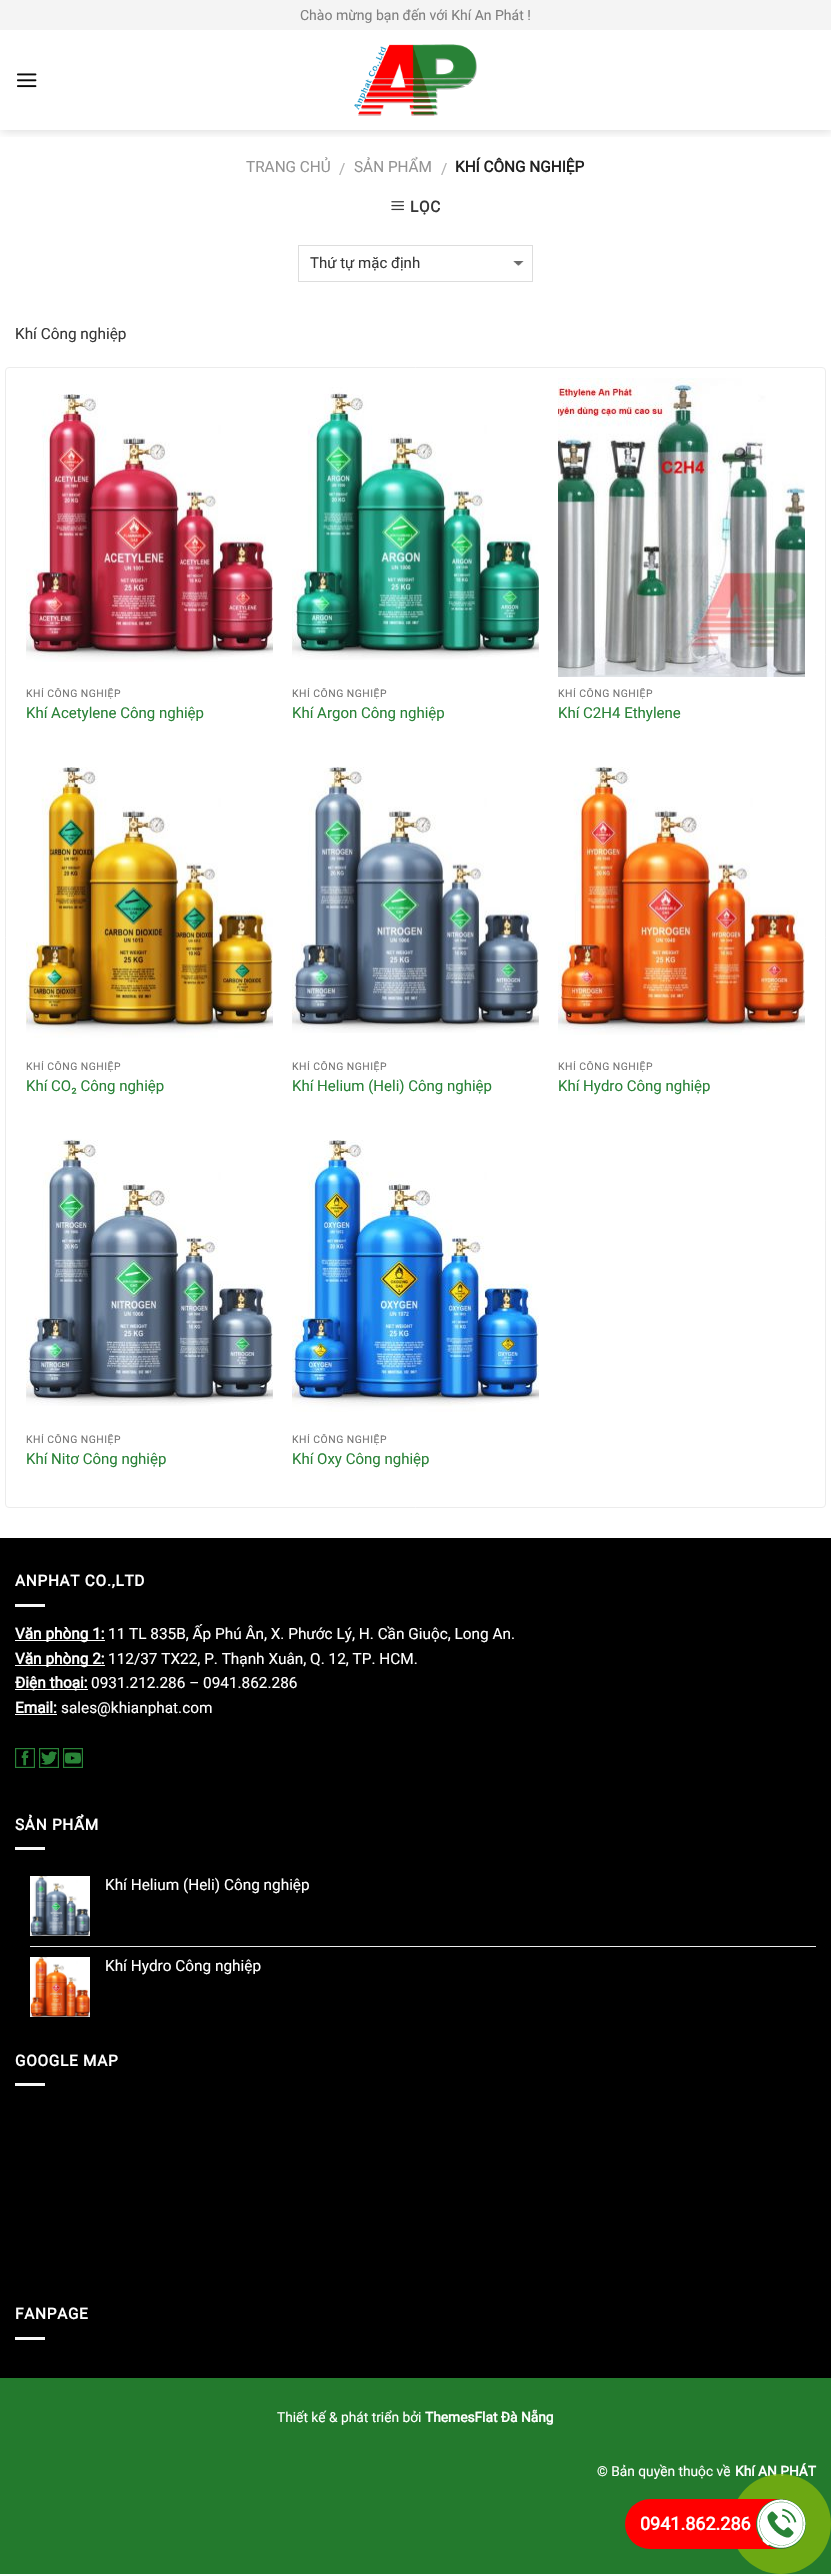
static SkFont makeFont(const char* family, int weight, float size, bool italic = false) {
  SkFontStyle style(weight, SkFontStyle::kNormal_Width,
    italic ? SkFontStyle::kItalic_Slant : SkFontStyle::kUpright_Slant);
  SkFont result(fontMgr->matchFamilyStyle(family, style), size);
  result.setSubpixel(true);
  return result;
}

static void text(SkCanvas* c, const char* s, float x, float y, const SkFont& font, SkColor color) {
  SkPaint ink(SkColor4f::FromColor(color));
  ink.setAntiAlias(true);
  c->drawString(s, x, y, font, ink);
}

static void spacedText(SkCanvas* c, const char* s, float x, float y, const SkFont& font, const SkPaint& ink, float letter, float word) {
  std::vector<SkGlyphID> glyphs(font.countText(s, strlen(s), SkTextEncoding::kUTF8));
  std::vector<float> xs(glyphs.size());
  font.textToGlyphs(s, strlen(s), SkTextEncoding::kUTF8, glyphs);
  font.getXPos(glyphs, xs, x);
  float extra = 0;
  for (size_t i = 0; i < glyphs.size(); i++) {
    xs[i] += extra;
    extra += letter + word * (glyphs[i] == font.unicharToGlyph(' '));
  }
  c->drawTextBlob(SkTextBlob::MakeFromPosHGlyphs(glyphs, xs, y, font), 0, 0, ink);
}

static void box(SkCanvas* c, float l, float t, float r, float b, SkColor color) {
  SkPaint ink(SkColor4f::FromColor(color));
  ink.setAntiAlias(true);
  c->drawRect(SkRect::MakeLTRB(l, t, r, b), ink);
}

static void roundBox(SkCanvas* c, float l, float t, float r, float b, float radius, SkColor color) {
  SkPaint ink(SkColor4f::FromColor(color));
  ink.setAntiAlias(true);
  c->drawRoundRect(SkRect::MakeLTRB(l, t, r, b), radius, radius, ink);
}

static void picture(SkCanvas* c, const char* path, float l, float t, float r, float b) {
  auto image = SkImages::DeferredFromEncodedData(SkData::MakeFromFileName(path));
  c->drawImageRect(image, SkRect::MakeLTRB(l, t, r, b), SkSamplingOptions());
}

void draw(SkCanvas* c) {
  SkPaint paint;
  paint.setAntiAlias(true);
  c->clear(0xff237a2d);
  box(c, 0, 30, 831, 1538, 0xffffffff);
  c->save();
  c->clipRect(SkRect::MakeLTRB(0, 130, 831, 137));
  paint.setColor(0x26000000);
  paint.setMaskFilter(SkMaskFilter::MakeBlur(kNormal_SkBlurStyle, 5));
  c->drawRect(SkRect::MakeLTRB(1, 1, 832, 131), paint);
  paint.setMaskFilter(nullptr);
  c->restore();
  box(c, 0, 0, 831, 30, 0xfff4f4f4);
  SkFont face1 = makeFont("Roboto", 400, 14);
  text(c, "Chào mừng bạn đến với Khí An Phát !", 300, 20, face1, 0xff808080);
  picture(c, "img_01.png", 17, 73, 37, 88);
  picture(c, "img_02.png", 354, 44, 477, 116);
  SkFont face2 = makeFont("Roboto", 400, 15.35f);
  text(c, "TRANG CHỦ", 246, 172, face2, 0xff949494);
  text(c, "/", 339, 174, face2, 0xffb2b2b2);
  text(c, "SẢN PHẨM", 354, 172, face2, 0xff949494);
  text(c, "/", 441, 174, face2, 0xffb2b2b2);
  SkFont face3 = makeFont("Roboto", 700, 15.35f);
  text(c, "KHÍ CÔNG NGHIỆP", 455, 172, face3, 0xff222222);
  picture(c, "img_03.png", 391, 201, 404, 211);
  paint.setColor(0xff383838);
  spacedText(c, "LỌC", 410, 212, face3, paint, 0.75f, 0);
  picture(c, "img_04.png", 513, 261, 524, 266);
  paint.setStyle(SkPaint::kStroke_Style);
  paint.setStrokeWidth(1);
  paint.setColor(0xffdddddd);
  c->drawRect(SkRect::MakeLTRB(298.5f, 245.5f, 532.5f, 281.5f), paint);
  SkFont face4 = makeFont("Roboto", 400, 15);
  text(c, "Thứ tự mặc định", 310, 268, face4, 0xff383838);
  text(c, "Khí Công nghiệp", 15, 339, face2, 0xff383838);
  paint.setColor(0xffececec);
  c->drawRoundRect(SkRect::MakeLTRB(5.5f, 367.5f, 825.5f, 1507.5f), 3.5f, 3.5f, paint);
  picture(c, "img_05.png", 26, 394, 273, 662);
  c->save();
  c->clipRect(SkRect::MakeLTRB(26, 688, 273, 700));
  SkFont face5 = makeFont("Roboto", 400, 10.4f);
  paint.setStyle(SkPaint::kFill_Style);
  paint.setColor(0xff747474);
  spacedText(c, "KHÍ CÔNG NGHIỆP", 26, 697, face5, paint, 0.5f, 0);
  c->restore();
  text(c, "Khí Acetylene Công nghiệp", 26, 718, face4, 0xff298237);
  picture(c, "img_06.png", 292, 387, 539, 660);
  c->save();
  c->clipRect(SkRect::MakeLTRB(292, 688, 539, 700));
  spacedText(c, "KHÍ CÔNG NGHIỆP", 292, 697, face5, paint, 0.5f, 0);
  c->restore();
  text(c, "Khí Argon Công nghiệp", 292, 718, face4, 0xff298237);
  picture(c, "img_07.png", 558, 378, 805, 677);
  c->save();
  c->clipRect(SkRect::MakeLTRB(558, 688, 805, 700));
  spacedText(c, "KHÍ CÔNG NGHIỆP", 558, 697, face5, paint, 0.5f, 0);
  c->restore();
  text(c, "Khí C2H4 Ethylene", 558, 718, face4, 0xff298237);
  picture(c, "img_08.png", 26, 767, 273, 1038);
  c->save();
  c->clipRect(SkRect::MakeLTRB(26, 1061, 273, 1074));
  spacedText(c, "KHÍ CÔNG NGHIỆP", 26, 1070, face5, paint, 0.5f, 0);
  c->restore();
  text(c, "Khí CO₂ Công nghiệp", 26, 1091, face4, 0xff298237);
  picture(c, "img_09.png", 292, 766, 539, 1033);
  c->save();
  c->clipRect(SkRect::MakeLTRB(292, 1061, 539, 1074));
  spacedText(c, "KHÍ CÔNG NGHIỆP", 292, 1070, face5, paint, 0.5f, 0);
  c->restore();
  text(c, "Khí Helium (Heli) Công nghiệp", 292, 1091, face4, 0xff298237);
  picture(c, "img_10.png", 558, 766, 805, 1035);
  c->save();
  c->clipRect(SkRect::MakeLTRB(558, 1061, 805, 1074));
  spacedText(c, "KHÍ CÔNG NGHIỆP", 558, 1070, face5, paint, 0.5f, 0);
  c->restore();
  text(c, "Khí Hydro Công nghiệp", 558, 1091, face4, 0xff298237);
  picture(c, "img_11.png", 26, 1139, 273, 1406);
  c->save();
  c->clipRect(SkRect::MakeLTRB(26, 1434, 273, 1447));
  spacedText(c, "KHÍ CÔNG NGHIỆP", 26, 1443, face5, paint, 0.5f, 0);
  c->restore();
  text(c, "Khí Nitơ Công nghiệp", 26, 1464, face4, 0xff298237);
  picture(c, "img_12.png", 292, 1140, 539, 1412);
  c->save();
  c->clipRect(SkRect::MakeLTRB(292, 1434, 539, 1447));
  spacedText(c, "KHÍ CÔNG NGHIỆP", 292, 1443, face5, paint, 0.5f, 0);
  c->restore();
  text(c, "Khí Oxy Công nghiệp", 292, 1464, face4, 0xff298237);
  box(c, 0, 1538, 831, 2378, 0xff000000);
  paint.setColor(0xffffffff);
  spacedText(c, "ANPHAT CO.,LTD", 15, 1586, face3, paint, 0.75f, 0);
  box(c, 15, 1604, 45, 1607, 0xfff7f7f7);
  box(c, 15, 1640, 105, 1641, 0xffffffff);
  text(c, "Văn phòng 1:", 15, 1639, face3, 0xffffffff);
  text(c, "11 TL 835B, Ấp Phú Ân, X. Phước Lý, H. Cần Giuộc, Long An.", 108, 1639, face2, 0xffffffff);
  box(c, 15, 1665, 105, 1666, 0xffffffff);
  text(c, "Văn phòng 2:", 15, 1664, face3, 0xffffffff);
  text(c, "112/37 TX22, P. Thạnh Xuân, Q. 12, TP. HCM.", 108, 1664, face2, 0xffffffff);
  box(c, 15, 1689, 88, 1690, 0xffffffff);
  text(c, "Điện thoại:", 15, 1688, face3, 0xffffffff);
  text(c, "0931.212.286 – 0941.862.286", 91, 1688, face2, 0xffffffff);
  text(c, "Email:", 15, 1713, face3, 0xffffffff);
  box(c, 15, 1714, 57, 1715, 0xffffffff);
  text(c, "sales@khianphat.com", 61, 1713, face2, 0xffffffff);
  picture(c, "img_13.png", 15, 1748, 35, 1768);
  picture(c, "img_14.png", 39, 1748, 59, 1768);
  picture(c, "img_15.png", 63, 1748, 83, 1768);
  spacedText(c, "SẢN PHẨM", 15, 1830, face3, paint, 0.75f, 0);
  box(c, 15, 1847, 45, 1850, 0xfff7f7f7);
  picture(c, "img_16.png", 30, 1876, 90, 1936);
  text(c, "Khí Helium (Heli) Công nghiệp", 105, 1890, face2, 0xffffffff);
  box(c, 30, 1946, 816, 1947, 0xffececec);
  picture(c, "img_17.png", 30, 1957, 90, 2017);
  text(c, "Khí Hydro Công nghiệp", 105, 1971, face2, 0xffffffff);
  spacedText(c, "GOOGLE MAP", 15, 2066, face3, paint, 0.75f, 0);
  box(c, 15, 2083, 45, 2086, 0xfff7f7f7);
  spacedText(c, "FANPAGE", 15, 2319, face3, paint, 0.75f, 0);
  box(c, 15, 2337, 45, 2340, 0xfff7f7f7);
  SkFont face6 = makeFont("Roboto", 400, 13.75f);
  text(c, "Thiết kế & phát triển bởi", 277, 2422, face6, 0xffffffff);
  SkFont face7 = makeFont("Roboto", 700, 13.75f);
  text(c, "ThemesFlat Đà Nẵng", 425, 2422, face7, 0xffffffff);
  text(c, "© Bản quyền thuộc về", 597, 2476, face6, 0xffffffff);
  text(c, "Khí AN PHÁT", 735, 2476, face7, 0xffffffff);
  paint.setColor(0xbf84b709);
  c->drawCircle(781, 2524, 50, paint);
  roundBox(c, 625, 2499, 805, 2549, 25, 0xffff0000);
  SkFont face8 = makeFont("Roboto", 700, 18);
  text(c, "0941.862.286", 640, 2530, face8, 0xffffffff);
  paint.setColor(0xff298337);
  c->drawCircle(781, 2524, 25, paint);
  picture(c, "img_18.png", 757, 2499, 806, 2548);
}
